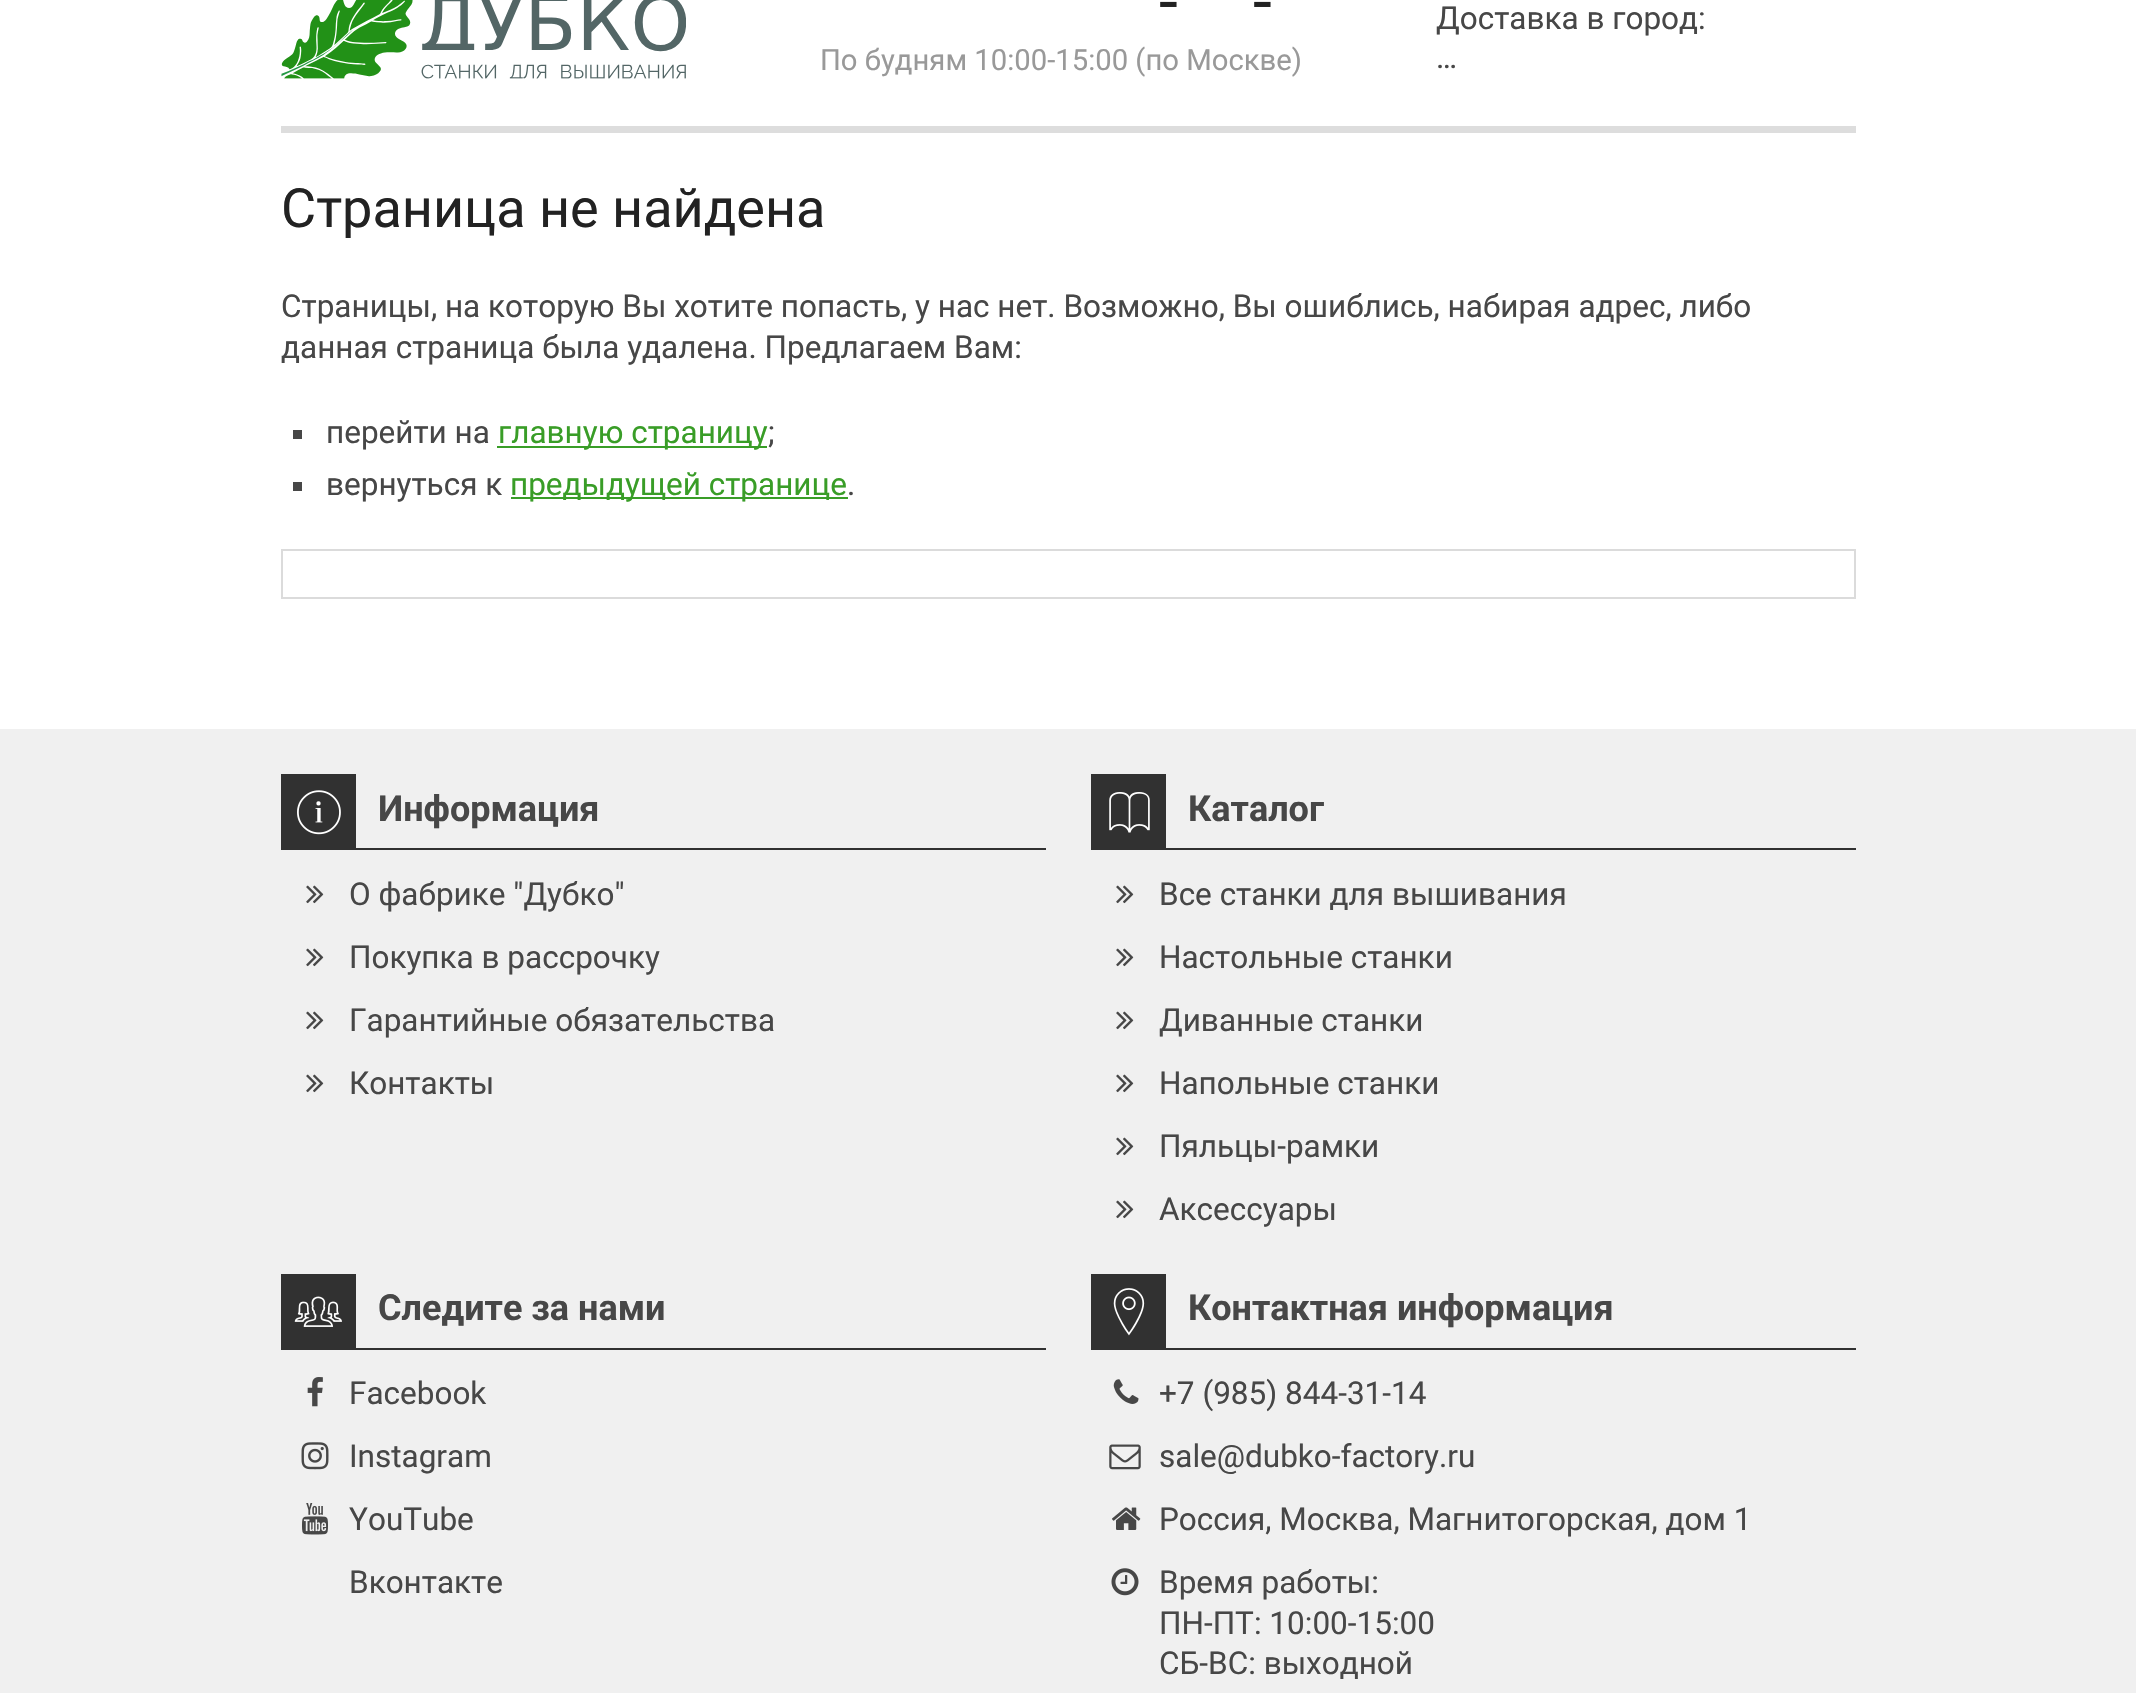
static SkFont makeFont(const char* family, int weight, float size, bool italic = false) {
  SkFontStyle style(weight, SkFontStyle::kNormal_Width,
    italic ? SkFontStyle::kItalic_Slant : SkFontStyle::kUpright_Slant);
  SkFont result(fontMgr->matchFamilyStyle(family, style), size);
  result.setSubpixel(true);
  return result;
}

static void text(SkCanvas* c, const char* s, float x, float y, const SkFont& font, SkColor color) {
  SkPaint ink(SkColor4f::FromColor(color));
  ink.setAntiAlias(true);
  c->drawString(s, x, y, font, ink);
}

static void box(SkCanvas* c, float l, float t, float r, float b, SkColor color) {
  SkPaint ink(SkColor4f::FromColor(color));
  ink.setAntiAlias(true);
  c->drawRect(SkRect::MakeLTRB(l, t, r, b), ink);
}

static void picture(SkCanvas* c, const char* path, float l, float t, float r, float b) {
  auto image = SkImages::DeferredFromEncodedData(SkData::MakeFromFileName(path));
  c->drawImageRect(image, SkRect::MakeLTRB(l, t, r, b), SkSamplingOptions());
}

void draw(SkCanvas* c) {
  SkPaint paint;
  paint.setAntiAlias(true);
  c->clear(0xffffffff);
  box(c, 281, 126, 1856, 133, 0xffdddddd);
  picture(c, "img_01.png", 281, 0, 686, 79);
  SkFont face1 = makeFont("Roboto", 400, 68);
  text(c, "-", 1159, 25, face1, 0xff222222);
  text(c, "-", 1253, 25, face1, 0xff222222);
  SkFont face2 = makeFont("Roboto", 400, 29.25f);
  text(c, "По будням 10:00-15:00 (по Москве)", 820, 70, face2, 0xff999999);
  SkFont face3 = makeFont("Roboto", 400, 31.5f);
  text(c, "Доставка в город:", 1436, 29, face3, 0xff474747);
  text(c, "…", 1436, 68, face3, 0xff474747);
  SkFont face4 = makeFont("Roboto", 400, 54);
  text(c, "Страница не найдена", 281, 227, face4, 0xff222222);
  text(c, "Страницы, на которую Вы хотите попасть, у нас нет. Возможно, Вы ошиблись, набирая адрес, либо", 281, 317, face3, 0xff474747);
  text(c, "данная страница была удалена. Предлагаем Вам:", 281, 358, face3, 0xff474747);
  box(c, 293, 430, 302, 439, 0xff474747);
  text(c, "перейти на", 326, 443, face3, 0xff474747);
  box(c, 497, 446, 767, 448, 0xff399d27);
  text(c, "главную страницу", 498, 443, face3, 0xff399d27);
  text(c, ";", 768, 443, face3, 0xff474747);
  box(c, 293, 482, 302, 491, 0xff474747);
  text(c, "вернуться к", 326, 495, face3, 0xff474747);
  box(c, 511, 497, 848, 499, 0xff399d27);
  text(c, "предыдущей странице", 510, 495, face3, 0xff399d27);
  text(c, ".", 847, 495, face3, 0xff474747);
  paint.setStyle(SkPaint::kStroke_Style);
  paint.setStrokeWidth(2);
  paint.setColor(0xffdbdbdb);
  c->drawRect(SkRect::MakeLTRB(282, 550, 1855, 598), paint);
  box(c, 0, 729, 2136, 1693, 0xfff0f0f0);
  box(c, 281, 848, 1046, 850, 0xff313131);
  box(c, 281, 774, 356, 848, 0xff313131);
  picture(c, "img_02.png", 297, 790, 341, 835);
  SkFont face5 = makeFont("Roboto", 700, 36);
  text(c, "Информация", 378, 821, face5, 0xff474747);
  picture(c, "img_03.png", 306, 885, 324, 904);
  text(c, "О фабрике \"Дубко\"", 349, 905, face3, 0xff474747);
  picture(c, "img_03.png", 306, 948, 324, 967);
  text(c, "Покупка в рассрочку", 349, 968, face3, 0xff474747);
  picture(c, "img_03.png", 306, 1011, 324, 1030);
  text(c, "Гарантийные обязательства", 349, 1031, face3, 0xff474747);
  picture(c, "img_03.png", 306, 1074, 324, 1093);
  text(c, "Контакты", 349, 1094, face3, 0xff474747);
  box(c, 1091, 848, 1856, 850, 0xff313131);
  box(c, 1091, 774, 1166, 848, 0xff313131);
  picture(c, "img_04.png", 1109, 792, 1150, 833);
  text(c, "Каталог", 1188, 821, face5, 0xff474747);
  picture(c, "img_03.png", 1116, 885, 1134, 904);
  text(c, "Все станки для вышивания", 1159, 905, face3, 0xff474747);
  picture(c, "img_03.png", 1116, 948, 1134, 967);
  text(c, "Настольные станки", 1159, 968, face3, 0xff474747);
  picture(c, "img_03.png", 1116, 1011, 1134, 1030);
  text(c, "Диванные станки", 1159, 1031, face3, 0xff474747);
  picture(c, "img_03.png", 1116, 1074, 1134, 1093);
  text(c, "Напольные станки", 1159, 1094, face3, 0xff474747);
  picture(c, "img_03.png", 1116, 1137, 1134, 1156);
  text(c, "Пяльцы-рамки", 1159, 1157, face3, 0xff474747);
  picture(c, "img_03.png", 1116, 1200, 1134, 1219);
  text(c, "Аксессуары", 1159, 1220, face3, 0xff474747);
  box(c, 281, 1348, 1046, 1350, 0xff313131);
  box(c, 281, 1274, 356, 1348, 0xff313131);
  picture(c, "img_05.png", 294, 1296, 342, 1327);
  text(c, "Следите за нами", 378, 1320, face5, 0xff474747);
  picture(c, "img_06.png", 307, 1377, 323, 1407);
  text(c, "Facebook", 349, 1404, face3, 0xff474747);
  picture(c, "img_07.png", 301, 1442, 329, 1470);
  text(c, "Instagram", 349, 1467, face3, 0xff474747);
  picture(c, "img_08.png", 302, 1503, 328, 1535);
  text(c, "YouTube", 349, 1530, face3, 0xff474747);
  text(c, "Вконтакте", 349, 1593, face3, 0xff474747);
  box(c, 1091, 1348, 1856, 1350, 0xff313131);
  box(c, 1091, 1274, 1166, 1348, 0xff313131);
  picture(c, "img_09.png", 1113, 1288, 1145, 1336);
  text(c, "Контактная информация", 1188, 1320, face5, 0xff474747);
  picture(c, "img_10.png", 1113, 1379, 1139, 1404);
  text(c, "+7 (985) 844-31-14", 1159, 1404, face3, 0xff474747);
  picture(c, "img_11.png", 1109, 1444, 1141, 1470);
  text(c, "sale@dubko-factory.ru", 1159, 1467, face3, 0xff474747);
  picture(c, "img_12.png", 1112, 1507, 1141, 1530);
  text(c, "Россия, Москва, Магнитогорская, дом 1", 1159, 1530, face3, 0xff474747);
  picture(c, "img_13.png", 1111, 1568, 1139, 1596);
  text(c, "Время работы:", 1159, 1593, face3, 0xff474747);
  text(c, "ПН-ПТ: 10:00-15:00", 1159, 1634, face3, 0xff474747);
  text(c, "СБ-ВС: выходной", 1159, 1674, face3, 0xff474747);
}
